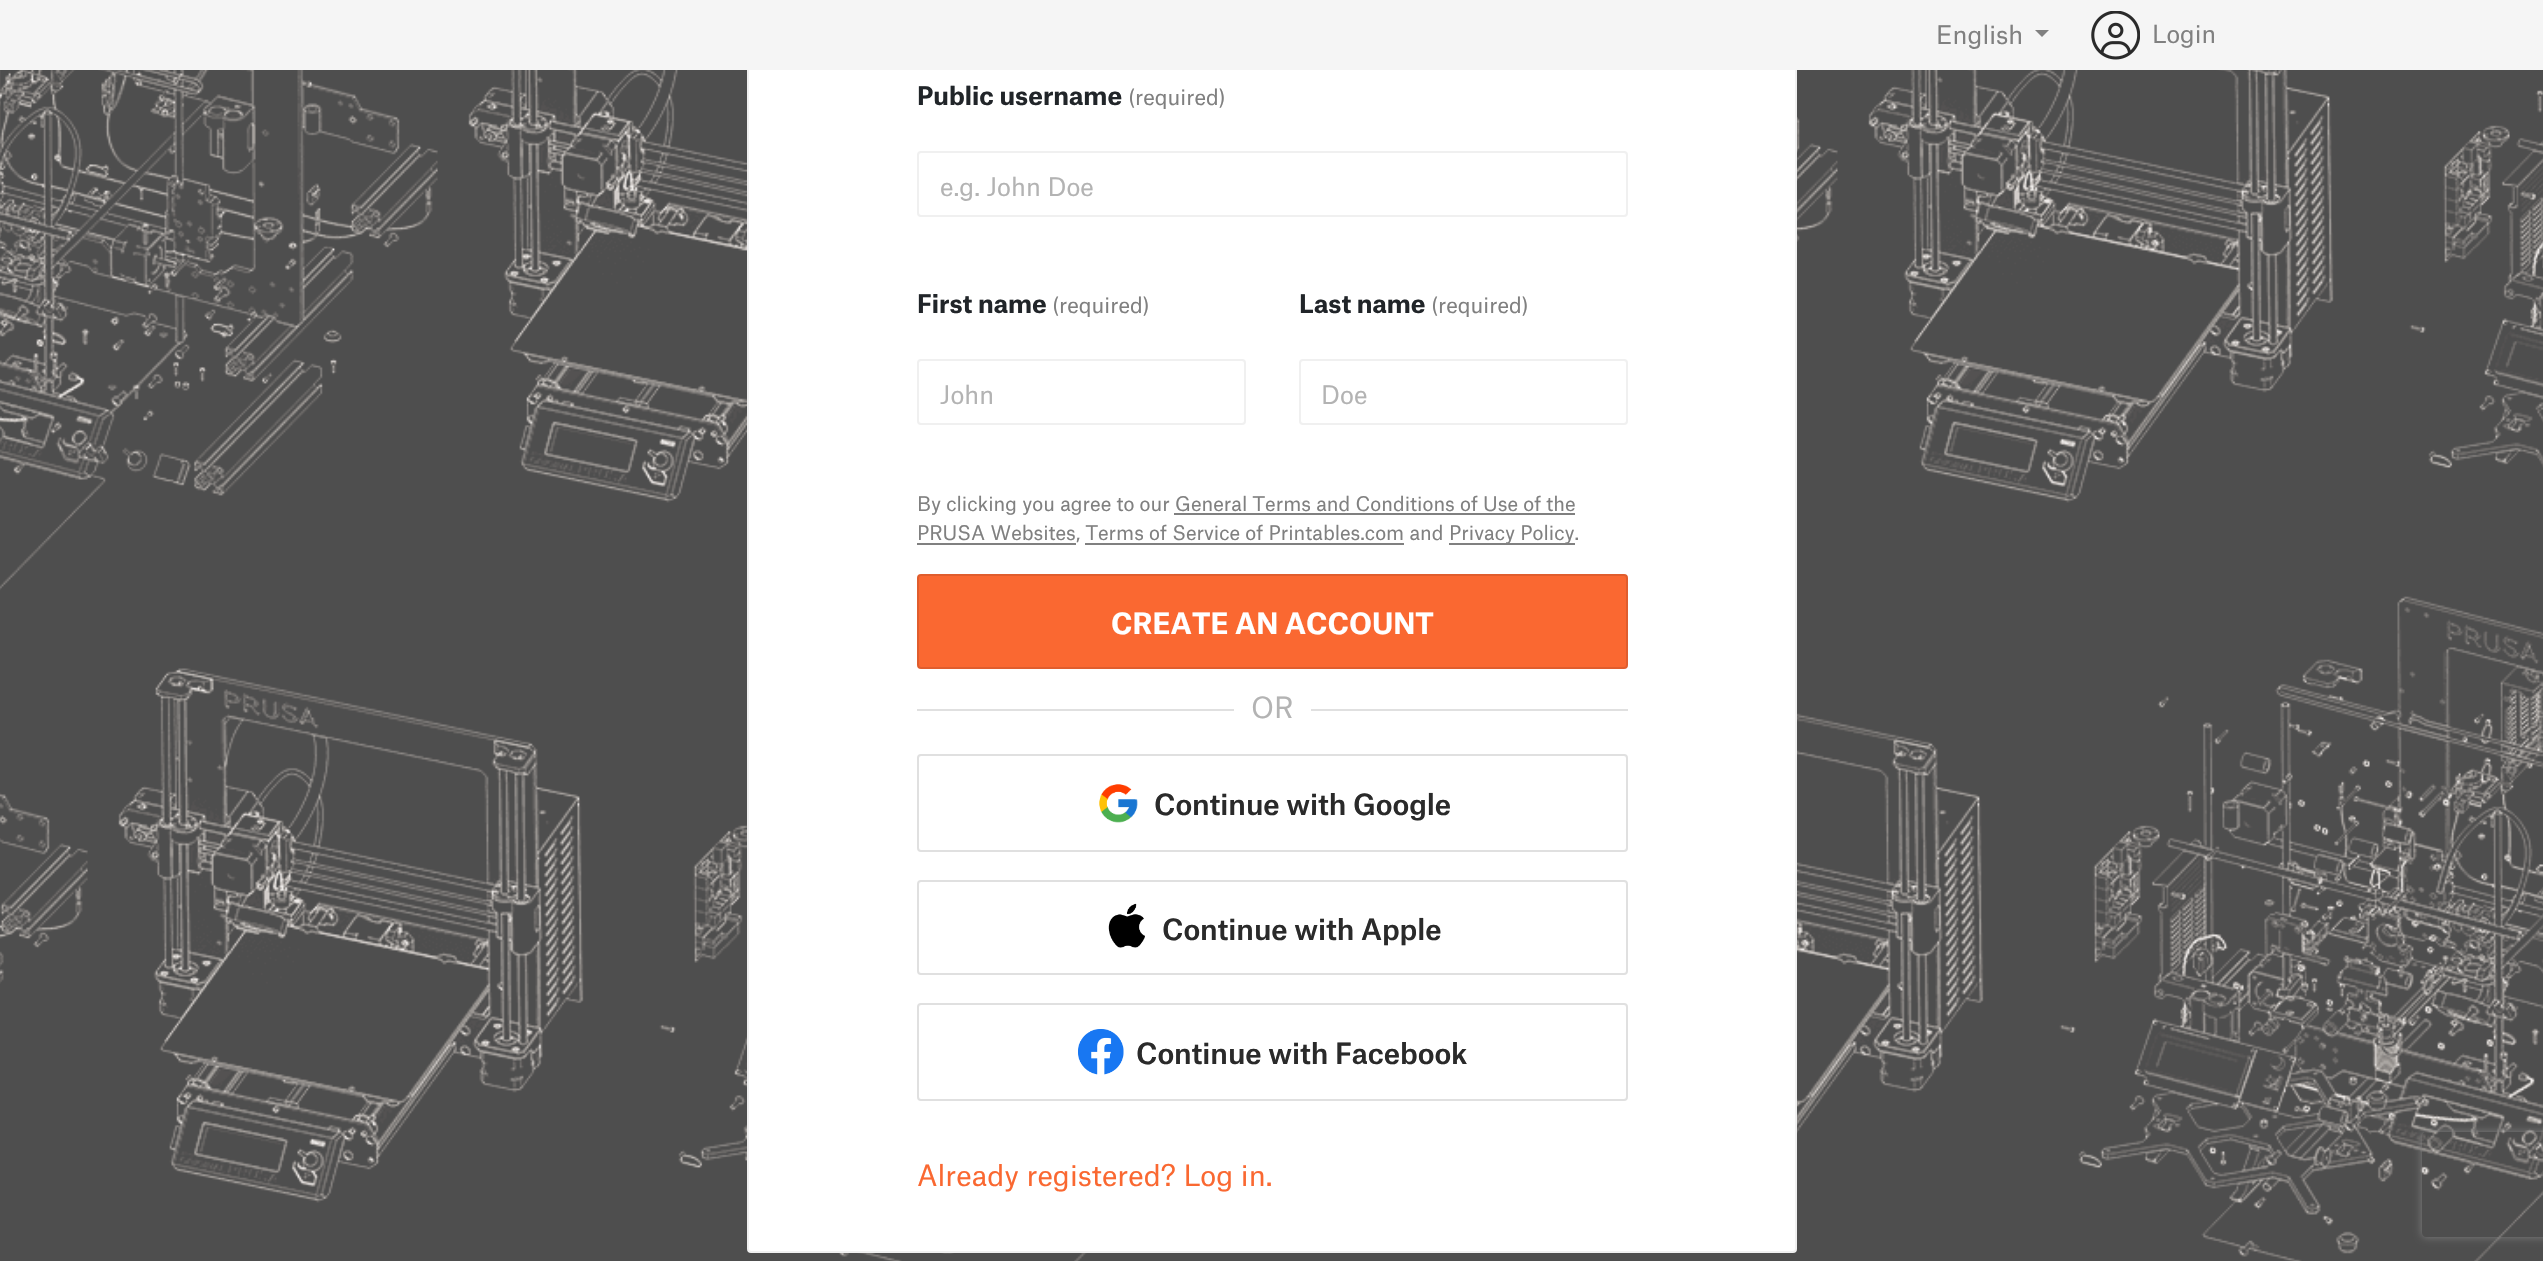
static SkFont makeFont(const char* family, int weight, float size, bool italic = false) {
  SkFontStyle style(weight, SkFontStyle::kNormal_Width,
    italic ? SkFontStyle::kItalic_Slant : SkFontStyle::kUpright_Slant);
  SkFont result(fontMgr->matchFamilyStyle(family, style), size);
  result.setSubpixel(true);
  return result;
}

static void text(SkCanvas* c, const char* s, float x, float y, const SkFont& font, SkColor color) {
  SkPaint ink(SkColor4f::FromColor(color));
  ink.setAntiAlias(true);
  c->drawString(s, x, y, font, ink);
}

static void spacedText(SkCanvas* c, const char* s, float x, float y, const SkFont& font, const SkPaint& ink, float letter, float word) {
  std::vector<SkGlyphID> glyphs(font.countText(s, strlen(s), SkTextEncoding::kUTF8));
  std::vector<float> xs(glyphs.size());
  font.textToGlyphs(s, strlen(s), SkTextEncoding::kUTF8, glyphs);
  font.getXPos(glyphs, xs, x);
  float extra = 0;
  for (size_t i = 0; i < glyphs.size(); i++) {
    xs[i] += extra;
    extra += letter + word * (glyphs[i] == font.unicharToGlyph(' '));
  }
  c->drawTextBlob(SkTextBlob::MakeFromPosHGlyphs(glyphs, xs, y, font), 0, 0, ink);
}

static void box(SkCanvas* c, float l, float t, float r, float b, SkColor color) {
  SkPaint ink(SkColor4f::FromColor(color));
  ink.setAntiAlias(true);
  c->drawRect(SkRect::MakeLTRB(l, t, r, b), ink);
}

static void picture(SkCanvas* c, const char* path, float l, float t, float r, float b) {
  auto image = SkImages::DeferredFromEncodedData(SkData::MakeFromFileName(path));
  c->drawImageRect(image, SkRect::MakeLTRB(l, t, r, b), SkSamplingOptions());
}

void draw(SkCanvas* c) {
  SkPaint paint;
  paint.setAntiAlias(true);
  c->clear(0xffffffff);
  picture(c, "img_01.png", 0, 70, 2543, 1261);
  paint.setColor(0xffffffff);
  c->drawRoundRect(SkRect::MakeLTRB(748, -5, 1796, 1252), 3, 3, paint);
  paint.setStyle(SkPaint::kStroke_Style);
  paint.setStrokeWidth(2);
  paint.setColor(0xfff0f0f0);
  c->drawRoundRect(SkRect::MakeLTRB(748, -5, 1796, 1252), 3, 3, paint);
  box(c, 0, 0, 2543, 70, 0xfff5f5f5);
  SkFont face1 = makeFont("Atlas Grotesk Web", 400, 24.5f);
  text(c, "English", 1936, 44, face1, 0xff808080);
  paint.setStyle(SkPaint::kFill_Style);
  paint.setColor(0xff808080);
  c->drawPath(SkPathBuilder().moveTo(2035, 30).lineTo(2049, 30).lineTo(2042, 37).close().detach(), paint);
  picture(c, "img_02.png", 2091, 11, 2140, 60);
  SkFont face2 = makeFont("Atlas Grotesk Web", 400, 24);
  text(c, "Login", 2152, 43, face2, 0xff808080);
  SkFont face3 = makeFont("Atlas Grotesk Web", 700, 24.5f);
  text(c, "Public username", 917, 105, face3, 0xff212529);
  SkFont face4 = makeFont("Atlas Grotesk Web", 400, 21);
  text(c, "(required)", 1128, 105, face4, 0xff808080);
  paint.setStyle(SkPaint::kStroke_Style);
  paint.setColor(0xfff0f0f0);
  c->drawRoundRect(SkRect::MakeLTRB(918, 152, 1627, 216), 3, 3, paint);
  text(c, "e.g. John Doe", 940, 196, face1, 0xffb3b3b3);
  text(c, "First name", 917, 313, face3, 0xff212529);
  text(c, "(required)", 1052, 313, face4, 0xff808080);
  c->drawRoundRect(SkRect::MakeLTRB(918, 360, 1245, 424), 3, 3, paint);
  text(c, "John", 940, 404, face1, 0xffb3b3b3);
  text(c, "Last name", 1299, 313, face3, 0xff212529);
  text(c, "(required)", 1431, 313, face4, 0xff808080);
  c->drawRoundRect(SkRect::MakeLTRB(1300, 360, 1627, 424), 3, 3, paint);
  text(c, "Doe", 1321, 404, face1, 0xffb3b3b3);
  SkFont face5 = makeFont("Atlas Grotesk Web", 400, 19.25f);
  text(c, "By clicking you agree to our General Terms and Conditions of Use of the", 917, 511, face5, 0xff808080);
  text(c, "PRUSA Websites, Terms of Service of Printables.com and", 917, 540, face5, 0xff808080);
  box(c, 1174, 513, 1575, 515, 0xff808080);
  box(c, 917, 543, 1076, 545, 0xff808080);
  box(c, 1449, 543, 1575, 545, 0xff808080);
  text(c, "Privacy Policy.", 1449, 540, face5, 0xff808080);
  box(c, 1085, 543, 1404, 545, 0xff808080);
  paint.setStyle(SkPaint::kFill_Style);
  paint.setColor(0xfffa6831);
  c->drawRoundRect(SkRect::MakeLTRB(918, 575, 1627, 668), 3, 3, paint);
  paint.setStyle(SkPaint::kStroke_Style);
  paint.setColor(0xffe05d2d);
  c->drawRoundRect(SkRect::MakeLTRB(918, 575, 1627, 668), 3, 3, paint);
  SkFont face6 = makeFont("Atlas Grotesk Web", 700, 28);
  text(c, "CREATE AN ACCOUNT", 1111, 634, face6, 0xffffffff);
  box(c, 917, 709, 1628, 711, 0xffe0e0e0);
  box(c, 1234, 709, 1311, 711, 0xffffffff);
  SkFont face7 = makeFont("Atlas Grotesk Web", 400, 28);
  text(c, "OR", 1251, 718, face7, 0xffb3b3b3);
  paint.setColor(0xffe0e0e0);
  c->drawRoundRect(SkRect::MakeLTRB(918, 755, 1627, 851), 3, 3, paint);
  picture(c, "img_03.png", 1099, 784, 1138, 823);
  SkFont face8 = makeFont("Atlas Grotesk Web", 500, 28);
  paint.setStyle(SkPaint::kFill_Style);
  paint.setColor(0xff2a2a2a);
  spacedText(c, "Continue with Google", 1154, 815, face8, paint, -0.1f, 0);
  paint.setStyle(SkPaint::kStroke_Style);
  paint.setColor(0xffe0e0e0);
  c->drawRoundRect(SkRect::MakeLTRB(918, 881, 1627, 974), 3, 3, paint);
  picture(c, "img_04.png", 1108, 903, 1145, 948);
  paint.setStyle(SkPaint::kFill_Style);
  paint.setColor(0xff2a2a2a);
  spacedText(c, "Continue with Apple", 1162, 940, face8, paint, -0.1f, 0);
  paint.setStyle(SkPaint::kStroke_Style);
  paint.setColor(0xffe0e0e0);
  c->drawRoundRect(SkRect::MakeLTRB(918, 1004, 1627, 1100), 3, 3, paint);
  picture(c, "img_05.png", 1078, 1029, 1124, 1075);
  paint.setStyle(SkPaint::kFill_Style);
  paint.setColor(0xff2a2a2a);
  spacedText(c, "Continue with Facebook", 1136, 1064, face8, paint, -0.1f, 0);
  c->save();
  c->clipPath(SkPathBuilder(SkPathFillType::kEvenOdd).moveTo(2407, 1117).lineTo(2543, 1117).lineTo(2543, 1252).lineTo(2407, 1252).close().moveTo(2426, 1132).lineTo(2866, 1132).cubicTo(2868, 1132, 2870, 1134, 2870, 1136).lineTo(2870, 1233).cubicTo(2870, 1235, 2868, 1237, 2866, 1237).lineTo(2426, 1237).cubicTo(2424, 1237, 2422, 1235, 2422, 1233).lineTo(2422, 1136).cubicTo(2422, 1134, 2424, 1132, 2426, 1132).close().detach(), true);
  paint.setColor(0xff808080);
  paint.setMaskFilter(SkMaskFilter::MakeBlur(kNormal_SkBlurStyle, 4.5f));
  c->drawRoundRect(SkRect::MakeLTRB(2422, 1132, 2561, 1237), 4, 4, paint);
  paint.setMaskFilter(nullptr);
  c->restore();
  text(c, "Already registered? Log in.", 917, 1186, face7, 0xfffa6831);
}
